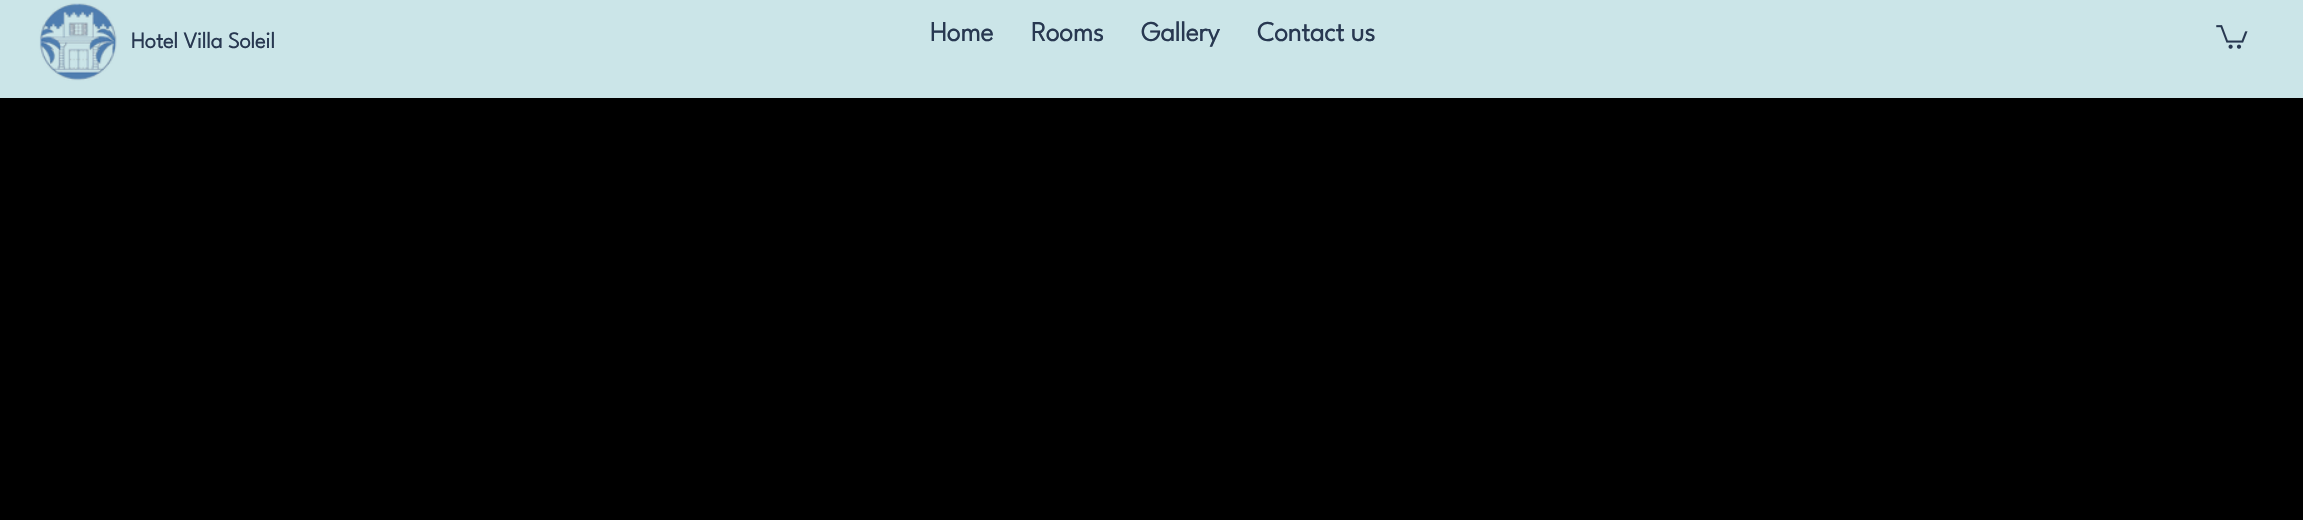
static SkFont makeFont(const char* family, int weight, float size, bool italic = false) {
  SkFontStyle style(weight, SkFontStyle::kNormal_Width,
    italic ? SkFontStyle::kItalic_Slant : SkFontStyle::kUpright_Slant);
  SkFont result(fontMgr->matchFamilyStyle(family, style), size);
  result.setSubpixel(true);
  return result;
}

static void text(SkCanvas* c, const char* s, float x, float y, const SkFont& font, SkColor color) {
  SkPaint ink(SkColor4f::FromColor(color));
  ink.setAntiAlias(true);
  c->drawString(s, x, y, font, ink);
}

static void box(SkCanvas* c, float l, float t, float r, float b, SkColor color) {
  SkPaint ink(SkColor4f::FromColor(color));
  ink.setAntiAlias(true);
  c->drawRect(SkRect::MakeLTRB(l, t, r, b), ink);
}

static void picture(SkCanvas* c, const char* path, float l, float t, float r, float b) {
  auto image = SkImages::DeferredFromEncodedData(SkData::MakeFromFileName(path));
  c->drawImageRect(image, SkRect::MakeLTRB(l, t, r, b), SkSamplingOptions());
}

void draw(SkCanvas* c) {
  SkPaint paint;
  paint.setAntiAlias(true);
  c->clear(0xff000000);
  box(c, 0, 0, 2303, 98, 0xffcbe5e8);
  picture(c, "img_01.png", 39, 3, 117, 81);
  SkFont face1 = makeFont("League Spartan", 700, 22.5f);
  text(c, "Hotel Villa Soleil", 131, 48, face1, 0xff283851);
  SkFont face2 = makeFont("League Spartan", 700, 27.5f);
  text(c, "Home", 930, 41, face2, 0xff283851);
  text(c, "Rooms", 1031, 41, face2, 0xff283851);
  text(c, "Gallery", 1141, 41, face2, 0xff283851);
  text(c, "Contact us", 1257, 41, face2, 0xff283851);
  picture(c, "img_02.png", 2216, 25, 2248, 49);
}
